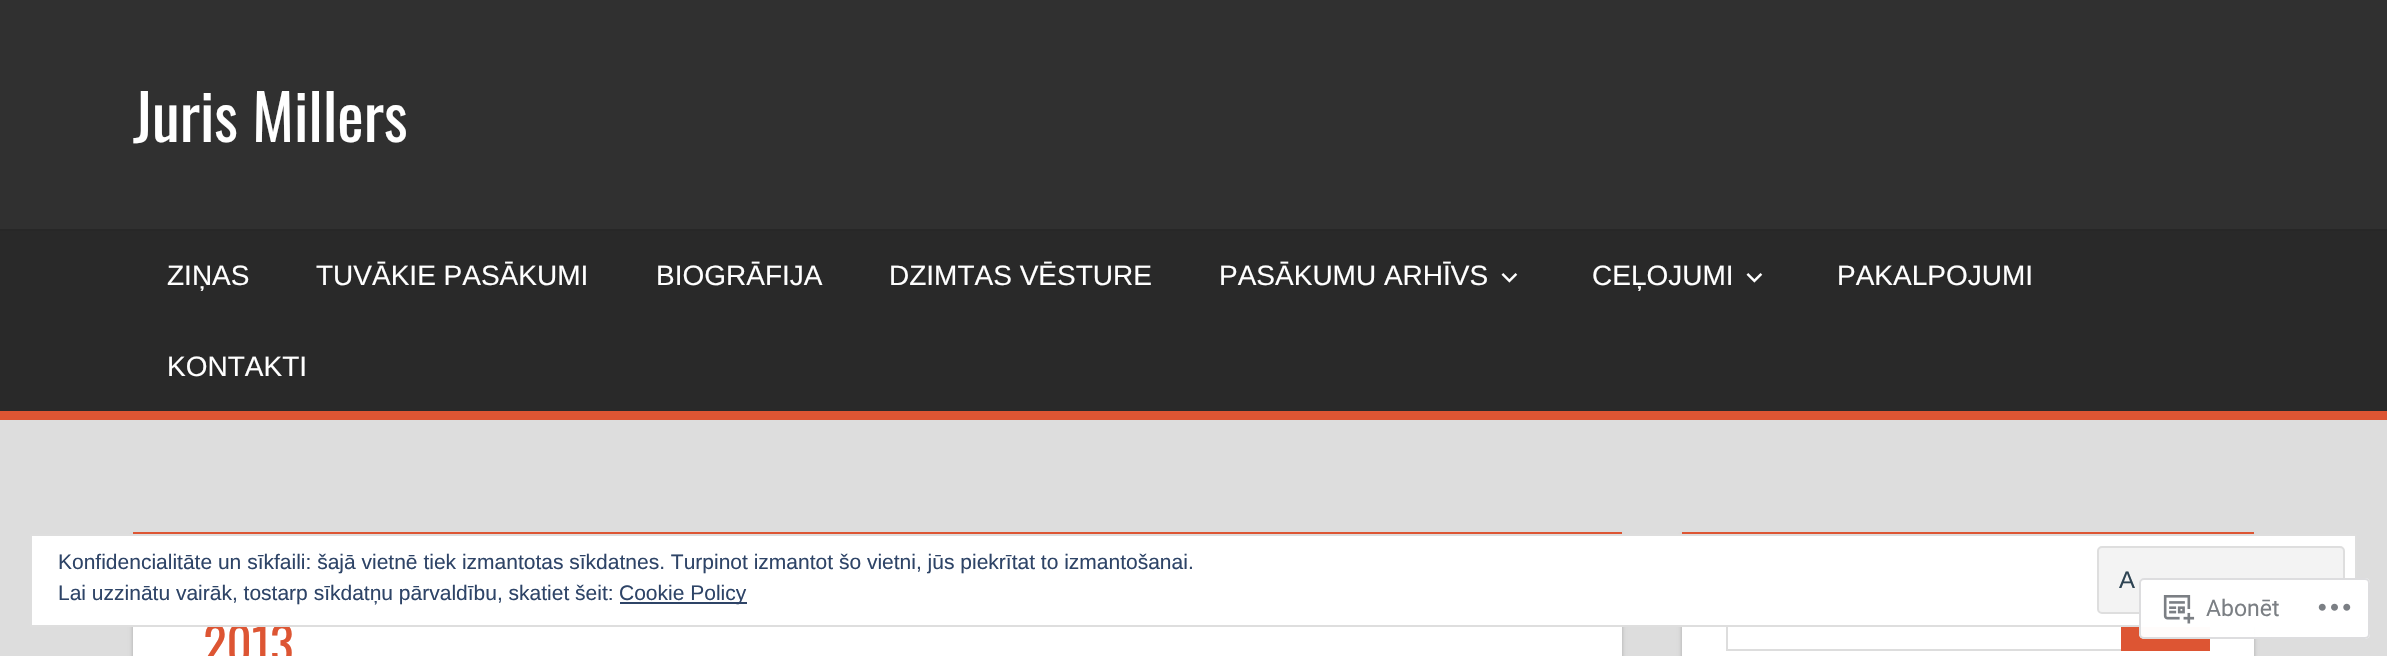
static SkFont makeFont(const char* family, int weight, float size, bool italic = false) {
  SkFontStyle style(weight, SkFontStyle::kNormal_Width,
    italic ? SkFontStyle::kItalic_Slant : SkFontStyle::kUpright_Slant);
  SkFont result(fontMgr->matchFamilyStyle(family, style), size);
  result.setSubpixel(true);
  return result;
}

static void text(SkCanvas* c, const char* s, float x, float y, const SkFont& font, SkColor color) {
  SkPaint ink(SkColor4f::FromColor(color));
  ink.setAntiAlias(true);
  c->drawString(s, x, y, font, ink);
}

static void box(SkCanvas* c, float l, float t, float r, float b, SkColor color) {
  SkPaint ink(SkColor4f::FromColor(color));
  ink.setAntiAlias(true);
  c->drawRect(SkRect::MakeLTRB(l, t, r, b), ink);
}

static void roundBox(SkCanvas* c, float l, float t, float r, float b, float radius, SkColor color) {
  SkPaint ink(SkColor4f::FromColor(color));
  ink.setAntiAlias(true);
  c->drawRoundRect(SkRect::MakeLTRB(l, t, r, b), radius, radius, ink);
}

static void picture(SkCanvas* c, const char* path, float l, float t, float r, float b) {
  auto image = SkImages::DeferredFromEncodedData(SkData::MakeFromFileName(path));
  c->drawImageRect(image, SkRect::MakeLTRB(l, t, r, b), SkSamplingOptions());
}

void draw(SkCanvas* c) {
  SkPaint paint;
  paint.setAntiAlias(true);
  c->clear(0xffdddddd);
  box(c, 0, 0, 2387, 229, 0xff303030);
  SkFont face1 = makeFont("Oswald", 400, 63);
  text(c, "Juris Millers", 133, 142, face1, 0xffffffff);
  box(c, 0, 231, 2387, 411, 0xff292929);
  box(c, 0, 229, 2387, 231, 0xff272727);
  box(c, 0, 411, 2387, 420, 0xffdd5533);
  SkFont face2 = makeFont("Arimo", 400, 28);
  text(c, "ZIŅAS", 167, 285, face2, 0xffffffff);
  text(c, "TUVĀKIE PASĀKUMI", 316, 285, face2, 0xffffffff);
  text(c, "BIOGRĀFIJA", 656, 285, face2, 0xffffffff);
  text(c, "DZIMTAS VĒSTURE", 889, 285, face2, 0xffffffff);
  text(c, "PASĀKUMU ARHĪVS", 1219, 285, face2, 0xffffffff);
  picture(c, "img_01.png", 1501, 273, 1518, 283);
  text(c, "CEĻOJUMI", 1592, 285, face2, 0xffffffff);
  picture(c, "img_01.png", 1746, 273, 1763, 283);
  text(c, "PAKALPOJUMI", 1837, 285, face2, 0xffffffff);
  text(c, "KONTAKTI", 167, 376, face2, 0xffffffff);
  paint.setColor(0xffaaaaaa);
  paint.setMaskFilter(SkMaskFilter::MakeBlur(kNormal_SkBlurStyle, 2));
  c->drawRect(SkRect::MakeLTRB(133, 536, 1622, 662), paint);
  paint.setMaskFilter(nullptr);
  box(c, 133, 627, 1622, 656, 0xffffffff);
  box(c, 133, 532, 1622, 534, 0xffdd5533);
  SkFont face3 = makeFont("Oswald", 400, 49);
  text(c, "2013", 203, 664, face3, 0xffdd5533);
  paint.setMaskFilter(SkMaskFilter::MakeBlur(kNormal_SkBlurStyle, 2));
  c->drawRect(SkRect::MakeLTRB(1682, 536, 2254, 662), paint);
  paint.setMaskFilter(nullptr);
  box(c, 1682, 627, 2254, 656, 0xffffffff);
  box(c, 1682, 532, 2254, 534, 0xffdd5533);
  paint.setStyle(SkPaint::kStroke_Style);
  paint.setStrokeWidth(2);
  paint.setColor(0xffdddddd);
  c->drawRect(SkRect::MakeLTRB(1727, 568, 2209, 650), paint);
  box(c, 2121, 627, 2210, 651, 0xffdd5533);
  paint.setStyle(SkPaint::kFill_Style);
  paint.setColor(0xffffffff);
  c->drawRect(SkRect::MakeLTRB(31, 535, 2356, 626), paint);
  paint.setStyle(SkPaint::kStroke_Style);
  paint.setColor(0xffdedede);
  c->drawRect(SkRect::MakeLTRB(31, 535, 2356, 626), paint);
  SkFont face4 = makeFont("Arimo", 400, 21);
  text(c, "Konfidencialitāte un sīkfaili: šajā vietnē tiek izmantotas sīkdatnes. Turpinot izmantot šo vietni, jūs piekrītat to izmantošanai.", 58, 569, face4, 0xff2e4467);
  paint.setStyle(SkPaint::kFill_Style);
  paint.setColor(0xfff3f3f3);
  c->drawRoundRect(SkRect::MakeLTRB(2098, 547, 2344, 613), 4, 4, paint);
  paint.setStyle(SkPaint::kStroke_Style);
  paint.setColor(0xffdedede);
  c->drawRoundRect(SkRect::MakeLTRB(2098, 547, 2344, 613), 4, 4, paint);
  SkFont face5 = makeFont("Arimo", 400, 24);
  text(c, "A", 2119, 588, face5, 0xff2e4453);
  text(c, "Lai uzzinātu vairāk, tostarp sīkdatņu pārvaldību, skatiet šeit:", 58, 600, face4, 0xff2e4467);
  box(c, 620, 602, 747, 604, 0xff2e4467);
  text(c, "Cookie Policy", 619, 600, face4, 0xff2e4467);
  roundBox(c, 2139, 578, 2370, 639, 5, 0xfaffffff);
  paint.setColor(0xfadcdcde);
  c->drawRoundRect(SkRect::MakeLTRB(2140, 579, 2369, 638), 4, 4, paint);
  picture(c, "img_02.png", 2163, 595, 2195, 624);
  SkFont face6 = makeFont("Roboto", 400, 23);
  text(c, "Abonēt", 2206, 616, face6, 0xff7b7f84);
  picture(c, "img_03.png", 2318, 603, 2351, 611);
}
